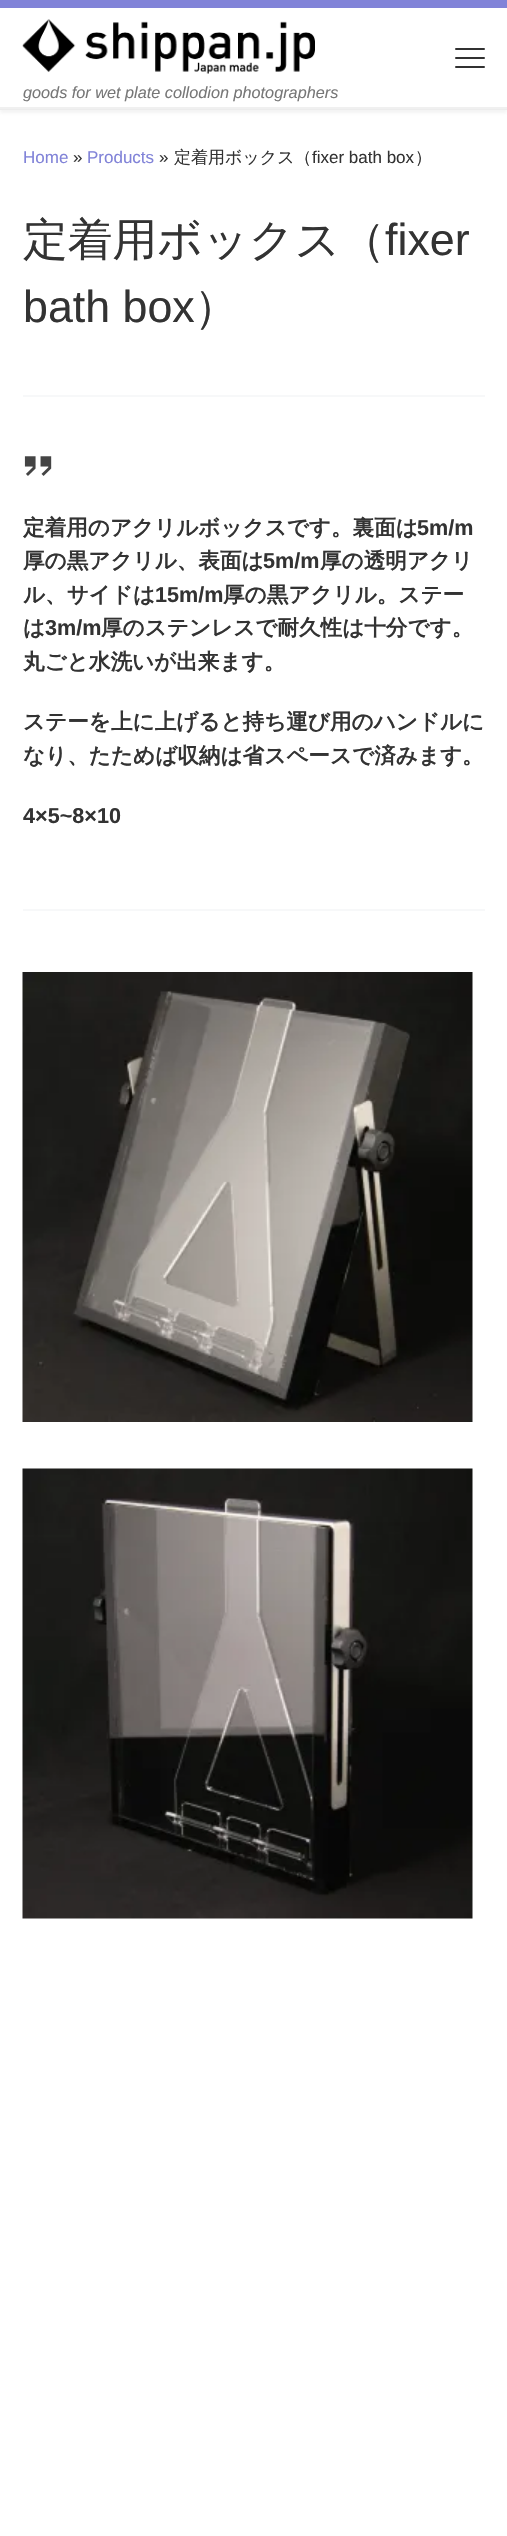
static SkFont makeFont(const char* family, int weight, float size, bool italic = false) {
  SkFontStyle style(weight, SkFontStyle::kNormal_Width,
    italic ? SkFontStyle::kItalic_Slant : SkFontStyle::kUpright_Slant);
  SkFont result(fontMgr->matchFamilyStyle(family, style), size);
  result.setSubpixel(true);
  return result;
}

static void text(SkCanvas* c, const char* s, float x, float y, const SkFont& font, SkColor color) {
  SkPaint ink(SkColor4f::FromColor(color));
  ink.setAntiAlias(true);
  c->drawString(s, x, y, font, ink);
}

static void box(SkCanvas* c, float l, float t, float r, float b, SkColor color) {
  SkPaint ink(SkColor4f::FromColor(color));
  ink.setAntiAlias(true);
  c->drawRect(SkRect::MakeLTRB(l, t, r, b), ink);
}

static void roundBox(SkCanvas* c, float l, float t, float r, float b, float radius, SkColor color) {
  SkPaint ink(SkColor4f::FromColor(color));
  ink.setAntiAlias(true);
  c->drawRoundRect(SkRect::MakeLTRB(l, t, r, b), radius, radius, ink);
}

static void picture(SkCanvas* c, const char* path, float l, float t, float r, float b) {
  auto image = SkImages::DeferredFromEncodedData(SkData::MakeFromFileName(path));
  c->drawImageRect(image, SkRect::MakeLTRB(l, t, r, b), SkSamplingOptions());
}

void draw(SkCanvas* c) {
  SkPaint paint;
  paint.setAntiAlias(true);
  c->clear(0xffffffff);
  paint.setColor(0x14666666);
  paint.setMaskFilter(SkMaskFilter::MakeBlur(kNormal_SkBlurStyle, 1.5f));
  c->drawRect(SkRect::MakeLTRB(0, 3, 507, 113), paint);
  paint.setMaskFilter(nullptr);
  box(c, 0, 8, 507, 107, 0xffffffff);
  box(c, 0, 0, 507, 8, 0xff8183d8);
  box(c, 0, 109, 507, 110, 0xffececec);
  roundBox(c, 455, 48, 485, 50, 1, 0xff313131);
  roundBox(c, 455, 57, 485, 59, 1, 0xff313131);
  roundBox(c, 455, 66, 485, 68, 1, 0xff313131);
  picture(c, "img_01.png", 22, 19, 315, 74);
  SkFont face1 = makeFont("Liberation Sans", 400, 16.25f, true);
  text(c, "goods for wet plate collodion photographers", 23, 98, face1, 0xff777777);
  box(c, 0, 107, 507, 109, 0xfff0f0f0);
  SkFont face2 = makeFont("Liberation Sans", 400, 17);
  text(c, "Home", 23, 163, face2, 0xff8183d8);
  text(c, "»", 73, 163, face2, 0xff333333);
  text(c, "Products", 87, 163, face2, 0xff8183d8);
  text(c, "»", 159, 163, face2, 0xff333333);
  SkFont face3 = makeFont("WenQuanYi Zen Hei", 500, 17);
  text(c, "定着用ボックス（", 174, 163, face3, 0xff333333);
  text(c, "fixer bath box", 312, 163, face2, 0xff333333);
  text(c, "）", 415, 163, face3, 0xff333333);
  SkFont face4 = makeFont("WenQuanYi Zen Hei", 500, 44.75f);
  text(c, "定着用ボックス（", 23, 255, face4, 0xff333333);
  SkFont face5 = makeFont("Liberation Sans", 400, 44.75f);
  text(c, "fixer", 385, 255, face5, 0xff333333);
  text(c, "bath box", 23, 322, face5, 0xff333333);
  text(c, "）", 194, 322, face4, 0xff333333);
  box(c, 23, 395, 485, 397, 0xfff7f8f9);
  box(c, 23, 909, 485, 911, 0xfff7f8f9);
  picture(c, "img_02.png", 24, 456, 52, 476);
  SkFont face6 = makeFont("WenQuanYi Zen Hei", 700, 21.6f);
  text(c, "定着用のアクリルボックスです。裏面は", 23, 535, face6, 0xff333333);
  SkFont face7 = makeFont("Liberation Sans", 700, 21.6f);
  text(c, "5m/m", 417, 535, face7, 0xff333333);
  text(c, "厚の黒アクリル、表面は", 23, 568, face6, 0xff333333);
  text(c, "5m/m", 263, 568, face7, 0xff333333);
  text(c, "厚の透明アクリ", 320, 568, face6, 0xff333333);
  text(c, "ル、サイドは", 23, 602, face6, 0xff333333);
  text(c, "15m/m", 155, 602, face7, 0xff333333);
  text(c, "厚の黒アクリル。ステー", 223, 602, face6, 0xff333333);
  text(c, "は", 23, 635, face6, 0xff333333);
  text(c, "3m/m", 45, 635, face7, 0xff333333);
  text(c, "厚のステンレスで耐久性は十分です。", 101, 635, face6, 0xff333333);
  text(c, "丸ごと水洗いが出来ます。", 23, 669, face6, 0xff333333);
  text(c, "ステーを上に上げると持ち運び用のハンドルに", 23, 729, face6, 0xff333333);
  text(c, "なり、たためば収納は省スペースで済みます。", 23, 763, face6, 0xff333333);
  text(c, "4×5~8×10", 23, 823, face7, 0xff333333);
  picture(c, "img_03.png", 22, 972, 473, 1422);
  picture(c, "img_04.png", 22, 1468, 473, 1919);
}
